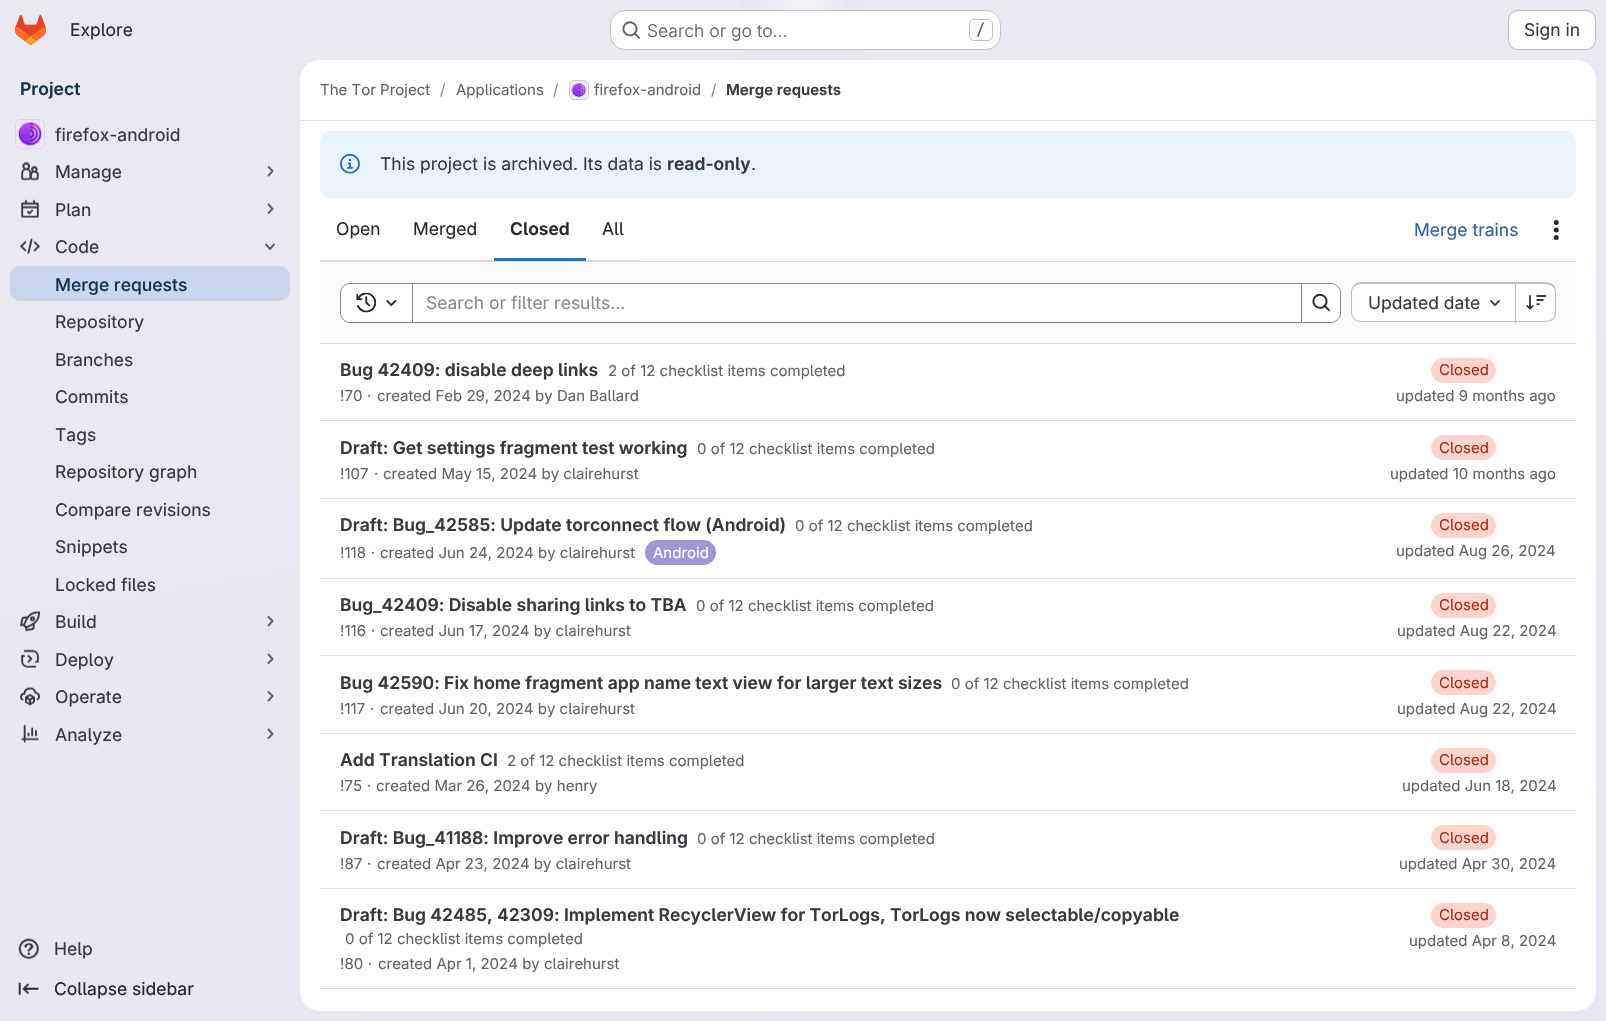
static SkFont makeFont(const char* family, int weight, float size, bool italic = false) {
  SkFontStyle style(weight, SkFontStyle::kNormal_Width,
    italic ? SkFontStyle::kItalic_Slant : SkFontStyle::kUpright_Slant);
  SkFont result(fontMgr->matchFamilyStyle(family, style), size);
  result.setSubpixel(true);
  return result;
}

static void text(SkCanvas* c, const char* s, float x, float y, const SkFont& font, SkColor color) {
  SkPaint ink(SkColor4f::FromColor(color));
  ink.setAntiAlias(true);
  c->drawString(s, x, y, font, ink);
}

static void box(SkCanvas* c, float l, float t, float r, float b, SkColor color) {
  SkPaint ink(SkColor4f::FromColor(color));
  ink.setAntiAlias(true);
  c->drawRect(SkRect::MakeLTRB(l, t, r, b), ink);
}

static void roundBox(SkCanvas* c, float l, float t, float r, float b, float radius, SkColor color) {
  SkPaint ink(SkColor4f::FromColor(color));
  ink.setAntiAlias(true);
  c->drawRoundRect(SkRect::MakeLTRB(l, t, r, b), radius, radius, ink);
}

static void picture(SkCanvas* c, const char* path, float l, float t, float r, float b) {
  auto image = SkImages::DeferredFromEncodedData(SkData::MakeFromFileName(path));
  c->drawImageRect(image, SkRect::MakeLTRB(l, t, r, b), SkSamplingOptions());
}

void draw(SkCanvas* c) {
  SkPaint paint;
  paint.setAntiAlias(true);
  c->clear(0xffffffff);
  {
    const SkColor colors[] = {0xffe8e6f0, 0xffeae9f2};
    const float stops[] = {0, 0.7f};
    const SkPoint ends[] = {{915, 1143}, {692, -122}};
    paint.setShader(SkGradientShader::MakeLinear(ends, colors, stops, 2, SkTileMode::kClamp));
    paint.setAlpha(255);
  }
  c->drawRect(SkRect::MakeLTRB(0, 0, 1606, 1021), paint);
  {
    const SkColor colors[] = {0xffe4e2ed, 0x00e4e2ed};
    const float stops[] = {0, 0.11f};
    SkMatrix m = SkMatrix::Translate(803, 0).preScale(803, 1021);
    paint.setShader(SkGradientShader::MakeRadial({0, 0}, 1, colors, stops, 2, SkTileMode::kClamp, 0, &m));
    paint.setAlpha(255);
  }
  c->drawRect(SkRect::MakeLTRB(740, 0, 866, 60), paint);
  {
    const SkColor colors[] = {0xffe4e2ec, 0x00e4e2ec};
    const float stops[] = {0, 0.08f};
    SkMatrix m = SkMatrix::Translate(803, 0).preScale(803, 1021);
    paint.setShader(SkGradientShader::MakeRadial({0, 0}, 1, colors, stops, 2, SkTileMode::kClamp, 0, &m));
    paint.setAlpha(255);
  }
  c->drawRect(SkRect::MakeLTRB(788, 6, 818, 34), paint);
  {
    const SkColor colors[] = {0x99ffffff, 0x00ffffff};
    const float stops[] = {0, 0.04f};
    paint.setShader(SkGradientShader::MakeRadial({803, 0}, 1299, colors, stops, 2, SkTileMode::kClamp));
    paint.setAlpha(255);
  }
  c->drawRect(SkRect::MakeLTRB(759, 0, 847, 10), paint);
  picture(c, "img_01.png", 15, 15, 46, 45);
  SkFont face1 = makeFont("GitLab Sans", 400, 17.5f);
  text(c, "Explore", 70, 36, face1, 0xff28272d);
  roundBox(c, 610, 10, 1001, 50, 15, 0xffffffff);
  paint.setStyle(SkPaint::kStroke_Style);
  paint.setStrokeWidth(1);
  paint.setShader(nullptr);
  paint.setColor(0x3d050506);
  c->drawRoundRect(SkRect::MakeLTRB(610.5f, 10.5f, 1000.5f, 49.5f), 14.5f, 14.5f, paint);
  picture(c, "img_02.png", 622, 21, 640, 39);
  SkFont face2 = makeFont("GitLab Sans", 300, 17.5f);
  text(c, "Search or go to…", 647, 37, face2, 0xff626168);
  paint.setStyle(SkPaint::kFill_Style);
  paint.setColor(0xfffbfafd);
  c->drawRoundRect(SkRect::MakeLTRB(969.5f, 19.5f, 992.5f, 40.5f), 4.5f, 4.5f, paint);
  paint.setStyle(SkPaint::kStroke_Style);
  paint.setColor(0xffbfbfc3);
  c->drawRoundRect(SkRect::MakeLTRB(969.5f, 19.5f, 992.5f, 40.5f), 4.5f, 4.5f, paint);
  SkFont face3 = makeFont("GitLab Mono", 500, 15);
  text(c, "/", 976, 35, face3, 0xff626168);
  paint.setStyle(SkPaint::kFill_Style);
  paint.setColor(0xffffffff);
  c->drawRoundRect(SkRect::MakeLTRB(1508.5f, 10.5f, 1595.5f, 49.5f), 9.5f, 9.5f, paint);
  paint.setStyle(SkPaint::kStroke_Style);
  paint.setColor(0xffbfbfc3);
  c->drawRoundRect(SkRect::MakeLTRB(1508.5f, 10.5f, 1595.5f, 49.5f), 9.5f, 9.5f, paint);
  text(c, "Sign in", 1524, 36, face1, 0xff3a383f);
  SkFont face4 = makeFont("GitLab Sans", 600, 17.5f);
  text(c, "Project", 20, 95, face4, 0xff18334e);
  roundBox(c, 15, 119, 45, 149, 5, 0xffffffff);
  picture(c, "img_03.png", 15, 119, 45, 149);
  paint.setColor(0x14050506);
  c->drawRoundRect(SkRect::MakeLTRB(15.5f, 119.5f, 44.5f, 148.5f), 4.5f, 4.5f, paint);
  SkFont face5 = makeFont("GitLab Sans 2", 400, 17.5f);
  text(c, "firefox-android", 55, 141, face5, 0xff3a383f);
  picture(c, "img_04.png", 21, 161, 39, 181);
  text(c, "Manage", 55, 178, face5, 0xff3a383f);
  paint.setStrokeWidth(1.9f);
  paint.setStrokeCap(SkPaint::kRound_Cap);
  paint.setStrokeJoin(SkPaint::kRound_Join);
  paint.setColor(0xff626168);
  c->drawPath(SkPathBuilder().moveTo(268.5f, 167).lineTo(272.5f, 171).lineTo(268.5f, 175.5f).detach(), paint);
  picture(c, "img_05.png", 21, 199, 39, 218);
  text(c, "Plan", 55, 216, face5, 0xff3a383f);
  c->drawPath(SkPathBuilder().moveTo(268.5f, 204.5f).lineTo(272.5f, 209).lineTo(268.5f, 213).detach(), paint);
  picture(c, "img_06.png", 20, 238, 40, 254);
  text(c, "Code", 55, 253, face5, 0xff3a383f);
  c->drawPath(SkPathBuilder().moveTo(274, 244.5f).lineTo(270, 249).lineTo(266, 244.5f).detach(), paint);
  roundBox(c, 10, 266, 290, 301, 10, 0xffcad6eb);
  SkFont face6 = makeFont("GitLab Sans", 500, 17.5f);
  text(c, "Merge requests", 55, 291, face6, 0xff18334e);
  text(c, "Repository", 55, 328, face5, 0xff3a383f);
  text(c, "Branches", 55, 366, face5, 0xff3a383f);
  text(c, "Commits", 55, 403, face5, 0xff3a383f);
  text(c, "Tags", 55, 441, face5, 0xff3a383f);
  text(c, "Repository graph", 55, 478, face5, 0xff3a383f);
  text(c, "Compare revisions", 55, 516, face5, 0xff3a383f);
  text(c, "Snippets", 55, 553, face5, 0xff3a383f);
  text(c, "Locked files", 55, 591, face5, 0xff3a383f);
  picture(c, "img_07.png", 20, 610, 40, 632);
  text(c, "Build", 55, 628, face5, 0xff3a383f);
  c->drawPath(SkPathBuilder().moveTo(268.5f, 617).lineTo(272.5f, 621).lineTo(268.5f, 625.5f).detach(), paint);
  picture(c, "img_08.png", 21, 649, 39, 668);
  text(c, "Deploy", 55, 666, face5, 0xff3a383f);
  c->drawPath(SkPathBuilder().moveTo(268.5f, 654.5f).lineTo(272.5f, 659).lineTo(268.5f, 663).detach(), paint);
  picture(c, "img_09.png", 20, 686, 40, 706);
  text(c, "Operate", 55, 703, face5, 0xff3a383f);
  c->drawPath(SkPathBuilder().moveTo(268.5f, 692).lineTo(272.5f, 696).lineTo(268.5f, 700.5f).detach(), paint);
  picture(c, "img_10.png", 21, 724, 39, 743);
  text(c, "Analyze", 55, 741, face5, 0xff3a383f);
  c->drawPath(SkPathBuilder().moveTo(268.5f, 729.5f).lineTo(272.5f, 734).lineTo(268.5f, 738).detach(), paint);
  picture(c, "img_11.png", 18, 938, 39, 959);
  text(c, "Help", 54, 955, face5, 0xff3a383f);
  picture(c, "img_12.png", 18, 981, 39, 996);
  text(c, "Collapse sidebar", 54, 995, face5, 0xff28272d);
  roundBox(c, 300, 60, 1596, 1011, 20, 0xffffffff);
  paint.setStyle(SkPaint::kFill_Style);
  paint.setColor(0xffffffff);
  c->drawPath(SkPathBuilder().moveTo(320, 60).lineTo(1576, 60).cubicTo(1587, 60, 1596, 69, 1596, 80).lineTo(1596, 121).lineTo(300, 121).lineTo(300, 80).cubicTo(300, 69, 309, 60, 320, 60).close().detach(), paint);
  box(c, 300, 120, 1596, 121, 0xffe1dfec);
  SkFont face7 = makeFont("GitLab Sans", 400, 15);
  text(c, "The Tor Project", 320, 95, face7, 0xff626168);
  text(c, "/", 440, 95, face7, 0xff89888d);
  text(c, "Applications", 456, 95, face7, 0xff626168);
  text(c, "/", 553, 95, face7, 0xff89888d);
  paint.setStyle(SkPaint::kStroke_Style);
  paint.setStrokeWidth(1);
  paint.setStrokeCap(SkPaint::kButt_Cap);
  paint.setStrokeJoin(SkPaint::kMiter_Join);
  paint.setColor(0xffdcdcde);
  c->drawRoundRect(SkRect::MakeLTRB(569.5f, 80.5f, 588.5f, 99.5f), 4.5f, 4.5f, paint);
  picture(c, "img_13.png", 570, 81, 588, 99);
  paint.setColor(0x14050506);
  c->drawRoundRect(SkRect::MakeLTRB(569.5f, 80.5f, 588.5f, 99.5f), 4.5f, 4.5f, paint);
  text(c, "firefox-android", 594, 95, face7, 0xff626168);
  text(c, "/", 711, 95, face7, 0xff89888d);
  SkFont face8 = makeFont("GitLab Sans", 600, 15);
  text(c, "Merge requests", 726, 95, face8, 0xff3a383f);
  roundBox(c, 320, 131, 1576, 198, 10, 0xffe9f3fc);
  picture(c, "img_14.png", 340, 153, 360, 174);
  text(c, "This project is archived. Its data is", 380, 170, face1, 0xff3a383f);
  text(c, "read-only", 667, 170, face4, 0xff3a383f);
  text(c, ".", 751, 170, face1, 0xff3a383f);
  box(c, 320, 261, 1576, 262, 0xffdcdcde);
  box(c, 320, 260, 640, 261, 0xffdcdcde);
  text(c, "Open", 336, 235, face1, 0xff28272d);
  text(c, "Merged", 413, 235, face1, 0xff28272d);
  text(c, "Closed", 510, 235, face4, 0xff28272d);
  box(c, 494, 258, 586, 261, 0xff1f75cb);
  text(c, "All", 602, 235, face1, 0xff28272d);
  text(c, "Merge trains", 1414, 236, face1, 0xff2f5ca0);
  picture(c, "img_15.png", 1553, 220, 1559, 240);
  box(c, 320, 263, 1576, 343, 0xfffbfafd);
  box(c, 320, 343, 1576, 344, 0xffdcdcde);
  box(c, 413, 284, 1301, 322, 0xffffffff);
  paint.setColor(0xff89888d);
  c->drawRect(SkRect::MakeLTRB(411.5f, 283.5f, 1302.5f, 322.5f), paint);
  paint.setStyle(SkPaint::kFill_Style);
  paint.setColor(0xffffffff);
  c->drawPath(SkPathBuilder().moveTo(350, 283.5f).lineTo(412.5f, 283.5f).lineTo(412.5f, 322.5f).lineTo(350, 322.5f).cubicTo(345, 322.5f, 340.5f, 318, 340.5f, 313).lineTo(340.5f, 293).cubicTo(340.5f, 288, 345, 283.5f, 350, 283.5f).close().detach(), paint);
  paint.setStyle(SkPaint::kStroke_Style);
  paint.setColor(0xff89888d);
  c->drawPath(SkPathBuilder().moveTo(350, 283.5f).lineTo(412.5f, 283.5f).lineTo(412.5f, 322.5f).lineTo(350, 322.5f).cubicTo(345, 322.5f, 340.5f, 318, 340.5f, 313).lineTo(340.5f, 293).cubicTo(340.5f, 288, 345, 283.5f, 350, 283.5f).close().detach(), paint);
  picture(c, "img_16.png", 356, 292, 377, 313);
  picture(c, "img_17.png", 386, 300, 397, 306);
  text(c, "Search or filter results…", 426, 309, face1, 0xff89888d);
  paint.setStyle(SkPaint::kFill_Style);
  paint.setColor(0xffffffff);
  c->drawPath(SkPathBuilder().moveTo(1301.5f, 283.5f).lineTo(1331, 283.5f).cubicTo(1336, 283.5f, 1340.5f, 288, 1340.5f, 293).lineTo(1340.5f, 313).cubicTo(1340.5f, 318, 1336, 322.5f, 1331, 322.5f).lineTo(1301.5f, 322.5f).close().detach(), paint);
  paint.setStyle(SkPaint::kStroke_Style);
  paint.setColor(0xff89888d);
  c->drawPath(SkPathBuilder().moveTo(1301.5f, 283.5f).lineTo(1331, 283.5f).cubicTo(1336, 283.5f, 1340.5f, 288, 1340.5f, 293).lineTo(1340.5f, 313).cubicTo(1340.5f, 318, 1336, 322.5f, 1331, 322.5f).lineTo(1301.5f, 322.5f).close().detach(), paint);
  picture(c, "img_18.png", 1312, 293, 1330, 312);
  paint.setStyle(SkPaint::kFill_Style);
  paint.setColor(0xffffffff);
  c->drawPath(SkPathBuilder().moveTo(1362, 284).lineTo(1515, 284).lineTo(1515, 321).lineTo(1362, 321).cubicTo(1357, 321, 1353, 317, 1353, 312).lineTo(1353, 293).cubicTo(1353, 288, 1357, 284, 1362, 284).close().detach(), paint);
  paint.setColor(0xffbfbfc3);
  c->drawPath(SkPathBuilder(SkPathFillType::kEvenOdd).moveTo(1361, 282).lineTo(1515, 282).lineTo(1515, 322).lineTo(1361, 322).cubicTo(1356, 322, 1351, 318, 1351, 312).lineTo(1351, 292).cubicTo(1351, 287, 1356, 282, 1361, 282).close().moveTo(1361, 284).lineTo(1515, 284).lineTo(1515, 321).lineTo(1361, 321).cubicTo(1356, 321, 1352, 317, 1352, 312).lineTo(1352, 292).cubicTo(1352, 288, 1356, 284, 1361, 284).close().detach(), paint);
  text(c, "Updated date", 1368, 309, face1, 0xff3a383f);
  picture(c, "img_19.png", 1490, 300, 1500, 306);
  paint.setColor(0xffffffff);
  c->drawPath(SkPathBuilder().moveTo(1516, 284).lineTo(1546, 284).cubicTo(1551, 284, 1555, 288, 1555, 293).lineTo(1555, 312).cubicTo(1555, 317, 1551, 321, 1546, 321).lineTo(1516, 321).close().detach(), paint);
  paint.setColor(0xffbfbfc3);
  c->drawPath(SkPathBuilder(SkPathFillType::kEvenOdd).moveTo(1516, 282).lineTo(1541, 282).cubicTo(1558, 282, 1556, 288, 1556, 302).cubicTo(1556, 317, 1558, 322, 1541, 322).lineTo(1516, 322).close().moveTo(1516, 284).lineTo(1541, 284).cubicTo(1557, 284, 1555, 289, 1555, 302).cubicTo(1555, 316, 1557, 321, 1541, 321).lineTo(1516, 321).close().detach(), paint);
  box(c, 1515, 283, 1516, 323, 0xffbfbfc3);
  picture(c, "img_20.png", 1526, 295, 1547, 310);
  box(c, 320, 420, 1576, 421, 0xffdcdcde);
  text(c, "Bug 42409: disable deep links", 340, 376, face4, 0xff3a383f);
  text(c, "2 of 12 checklist items completed", 608, 376, face7, 0xff626168);
  text(c, "!70", 340, 401, face7, 0xff626168);
  text(c, "·", 367, 401, face7, 0xff626168);
  text(c, "created Feb 29, 2024 by Dan Ballard", 377, 401, face7, 0xff626168);
  roundBox(c, 1431, 358, 1496, 383, 12.5f, 0xfffdd4cd);
  text(c, "Closed", 1439, 375, face7, 0xffa32c12);
  text(c, "updated 9 months ago", 1396, 401, face7, 0xff626168);
  box(c, 320, 498, 1576, 499, 0xffdcdcde);
  text(c, "Draft: Get settings fragment test working", 340, 454, face4, 0xff3a383f);
  text(c, "0 of 12 checklist items completed", 697, 454, face7, 0xff626168);
  text(c, "!107", 340, 479, face7, 0xff626168);
  text(c, "·", 374, 479, face7, 0xff626168);
  text(c, "created May 15, 2024 by clairehurst", 383, 479, face7, 0xff626168);
  roundBox(c, 1431, 435, 1496, 460, 12.5f, 0xfffdd4cd);
  text(c, "Closed", 1439, 453, face7, 0xffa32c12);
  text(c, "updated 10 months ago", 1390, 479, face7, 0xff626168);
  box(c, 320, 578, 1576, 579, 0xffdcdcde);
  text(c, "Draft: Bug_42585: Update torconnect flow (Android)", 340, 531, face4, 0xff3a383f);
  text(c, "0 of 12 checklist items completed", 795, 531, face7, 0xff626168);
  text(c, "!118", 340, 558, face7, 0xff626168);
  text(c, "·", 371, 558, face7, 0xff626168);
  text(c, "created Jun 24, 2024 by clairehurst", 380, 558, face7, 0xff626168);
  paint.setColor(0xffa295d6);
  c->drawRoundRect(SkRect::MakeLTRB(646.5f, 541.5f, 714.5f, 563.5f), 11, 11, paint);
  paint.setStyle(SkPaint::kStroke_Style);
  paint.setStrokeWidth(3);
  c->drawRoundRect(SkRect::MakeLTRB(646.5f, 541.5f, 714.5f, 563.5f), 11, 11, paint);
  text(c, "Android", 653, 558, face7, 0xffffffff);
  roundBox(c, 1431, 513, 1496, 538, 12.5f, 0xfffdd4cd);
  text(c, "Closed", 1439, 530, face7, 0xffa32c12);
  text(c, "updated Aug 26, 2024", 1396, 556, face7, 0xff626168);
  box(c, 320, 655, 1576, 656, 0xffdcdcde);
  text(c, "Bug_42409: Disable sharing links to TBA", 340, 611, face4, 0xff3a383f);
  text(c, "0 of 12 checklist items completed", 696, 611, face7, 0xff626168);
  text(c, "!116", 340, 636, face7, 0xff626168);
  text(c, "·", 371, 636, face7, 0xff626168);
  text(c, "created Jun 17, 2024 by clairehurst", 380, 636, face7, 0xff626168);
  roundBox(c, 1431, 593, 1496, 618, 12.5f, 0xfffdd4cd);
  text(c, "Closed", 1439, 610, face7, 0xffa32c12);
  text(c, "updated Aug 22, 2024", 1397, 636, face7, 0xff626168);
  box(c, 320, 733, 1576, 734, 0xffdcdcde);
  text(c, "Bug 42590: Fix home fragment app name text view for larger text sizes", 340, 689, face4, 0xff3a383f);
  text(c, "0 of 12 checklist items completed", 951, 689, face7, 0xff626168);
  text(c, "!117", 340, 714, face7, 0xff626168);
  text(c, "·", 370, 714, face7, 0xff626168);
  text(c, "created Jun 20, 2024 by clairehurst", 380, 714, face7, 0xff626168);
  roundBox(c, 1431, 670, 1496, 695, 12.5f, 0xfffdd4cd);
  text(c, "Closed", 1439, 688, face7, 0xffa32c12);
  text(c, "updated Aug 22, 2024", 1397, 714, face7, 0xff626168);
  box(c, 320, 810, 1576, 811, 0xffdcdcde);
  text(c, "Add Translation CI", 340, 766, face4, 0xff3a383f);
  text(c, "2 of 12 checklist items completed", 507, 766, face7, 0xff626168);
  text(c, "!75", 340, 791, face7, 0xff626168);
  text(c, "·", 367, 791, face7, 0xff626168);
  text(c, "created Mar 26, 2024 by henry", 376, 791, face7, 0xff626168);
  roundBox(c, 1431, 748, 1496, 773, 12.5f, 0xfffdd4cd);
  text(c, "Closed", 1439, 765, face7, 0xffa32c12);
  text(c, "updated Jun 18, 2024", 1402, 791, face7, 0xff626168);
  box(c, 320, 888, 1576, 889, 0xffdcdcde);
  text(c, "Draft: Bug_41188: Improve error handling", 340, 844, face4, 0xff3a383f);
  text(c, "0 of 12 checklist items completed", 697, 844, face7, 0xff626168);
  text(c, "!87", 340, 869, face7, 0xff626168);
  text(c, "·", 367, 869, face7, 0xff626168);
  text(c, "created Apr 23, 2024 by clairehurst", 377, 869, face7, 0xff626168);
  roundBox(c, 1431, 825, 1496, 850, 12.5f, 0xfffdd4cd);
  text(c, "Closed", 1439, 843, face7, 0xffa32c12);
  text(c, "updated Apr 30, 2024", 1399, 869, face7, 0xff626168);
  box(c, 320, 988, 1576, 989, 0xffdcdcde);
  text(c, "Draft: Bug 42485, 42309: Implement RecyclerView for TorLogs, TorLogs now selectable/copyable", 340, 921, face4, 0xff3a383f);
  text(c, "0 of 12 checklist items completed", 345, 944, face7, 0xff626168);
  text(c, "!80", 340, 969, face7, 0xff626168);
  text(c, "·", 368, 969, face7, 0xff626168);
  text(c, "created Apr 1, 2024 by clairehurst", 378, 969, face7, 0xff626168);
  roundBox(c, 1431, 903, 1496, 928, 12.5f, 0xfffdd4cd);
  text(c, "Closed", 1439, 920, face7, 0xffa32c12);
  text(c, "updated Apr 8, 2024", 1409, 946, face7, 0xff626168);
}
